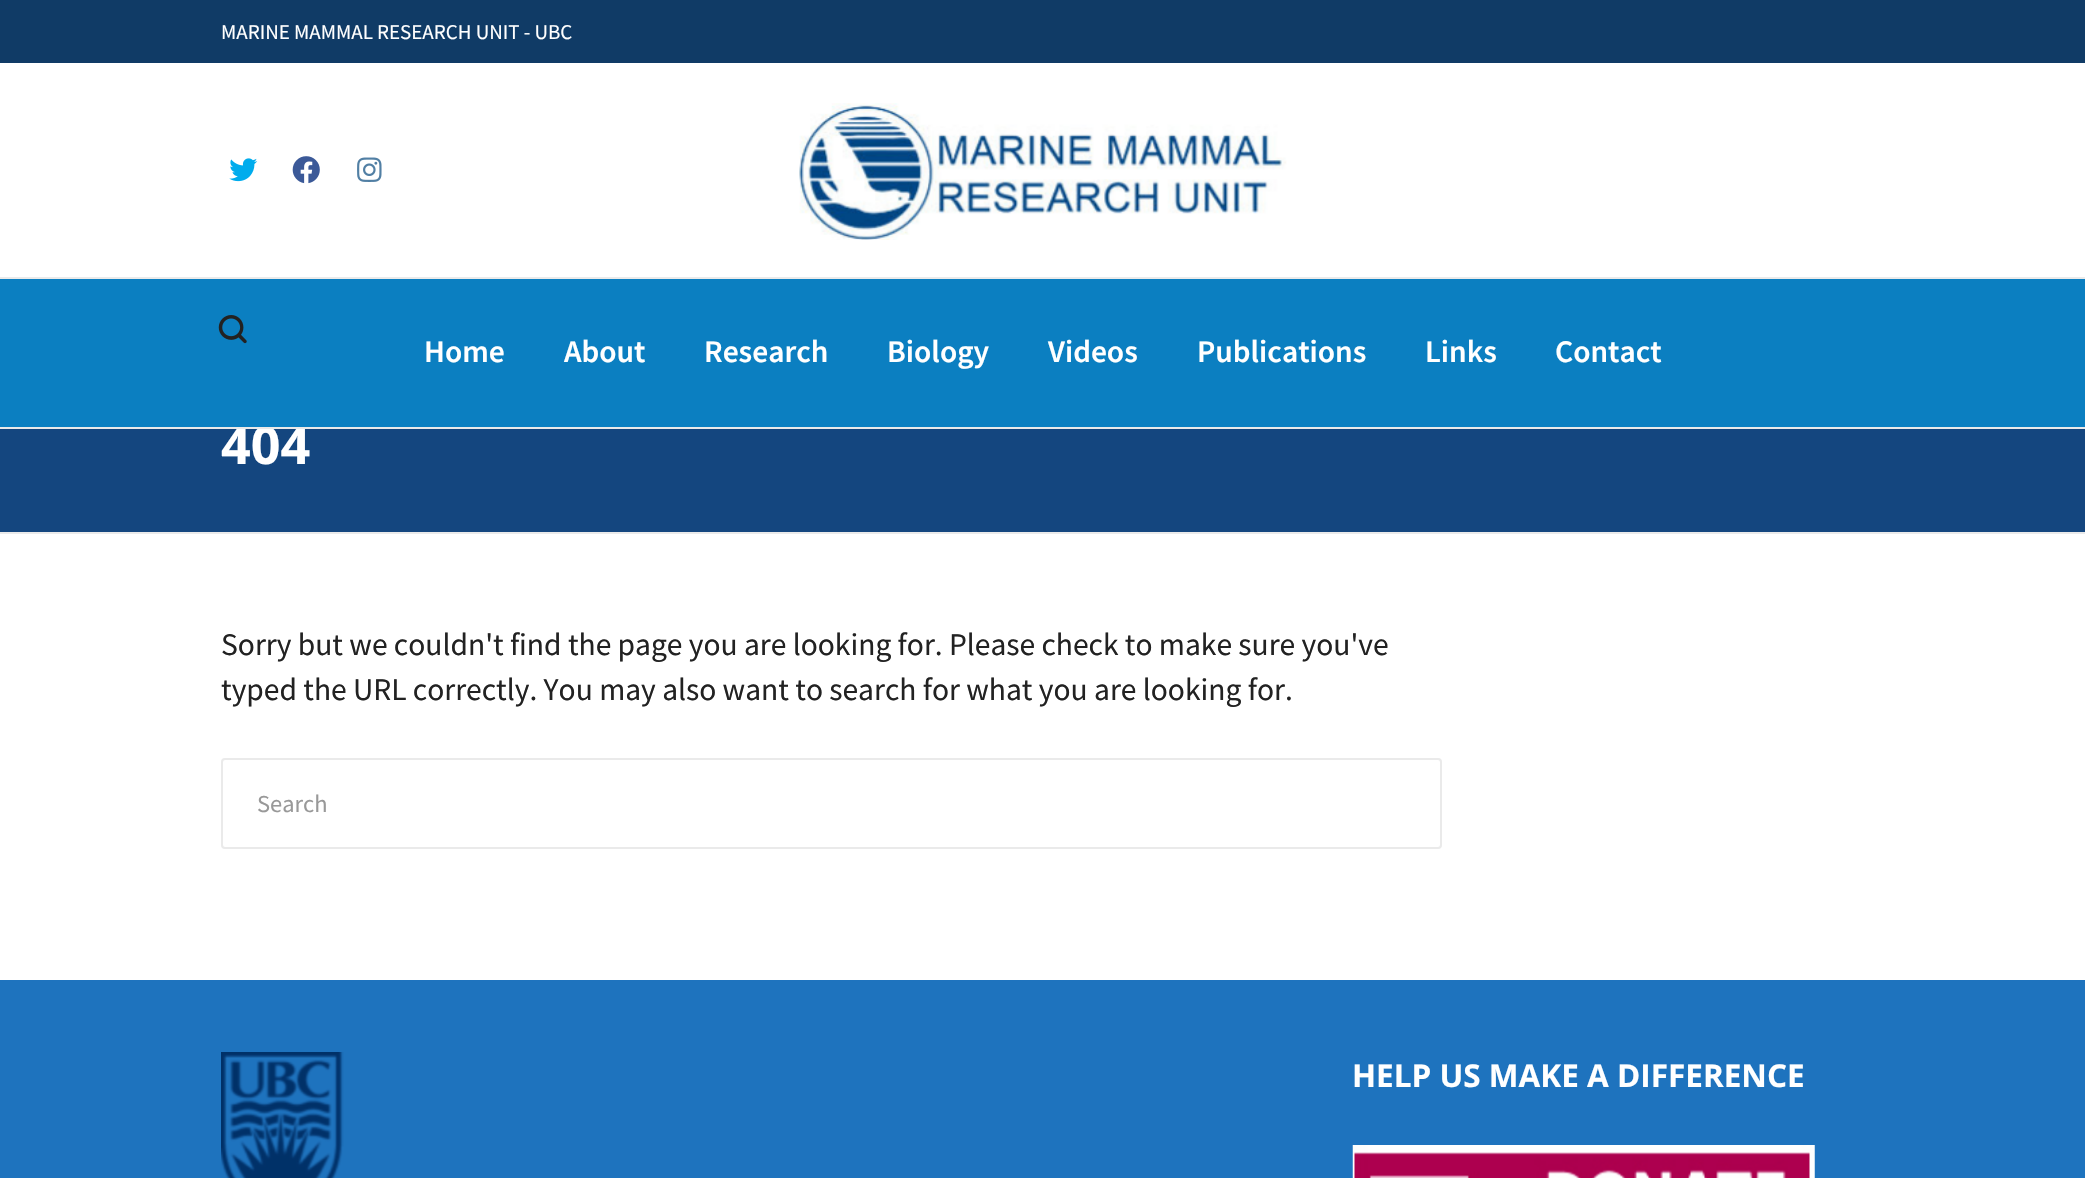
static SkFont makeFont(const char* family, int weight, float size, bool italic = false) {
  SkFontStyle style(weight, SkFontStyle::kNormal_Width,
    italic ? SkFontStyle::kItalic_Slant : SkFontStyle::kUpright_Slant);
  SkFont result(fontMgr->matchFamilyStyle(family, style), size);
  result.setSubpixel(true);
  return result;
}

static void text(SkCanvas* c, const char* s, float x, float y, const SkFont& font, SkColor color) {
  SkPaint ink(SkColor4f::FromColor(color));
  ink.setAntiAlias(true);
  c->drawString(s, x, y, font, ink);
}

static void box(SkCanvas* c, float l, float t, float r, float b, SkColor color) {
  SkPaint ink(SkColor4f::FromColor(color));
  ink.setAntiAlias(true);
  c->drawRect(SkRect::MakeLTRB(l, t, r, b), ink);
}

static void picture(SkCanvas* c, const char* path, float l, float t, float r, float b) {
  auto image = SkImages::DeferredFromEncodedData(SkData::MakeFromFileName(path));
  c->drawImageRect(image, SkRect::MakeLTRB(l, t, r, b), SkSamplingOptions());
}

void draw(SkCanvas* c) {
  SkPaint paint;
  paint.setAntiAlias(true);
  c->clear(0xffffffff);
  box(c, 0, 0, 2085, 63, 0xff103b66);
  SkFont face1 = makeFont("Source Sans Pro", 400, 21);
  text(c, "MARINE MAMMAL RESEARCH UNIT - UBC", 221, 39, face1, 0xffffffff);
  box(c, 0, 277, 2085, 279, 0xffeaeaea);
  picture(c, "img_01.png", 229, 158, 258, 182);
  picture(c, "img_02.png", 292, 156, 320, 184);
  picture(c, "img_03.png", 357, 157, 382, 182);
  picture(c, "img_04.png", 799, 103, 1287, 240);
  box(c, 0, 429, 2085, 532, 0xff14467f);
  SkFont face2 = makeFont("Open Sans", 700, 52);
  text(c, "404", 221, 464, face2, 0xffffffff);
  box(c, 0, 279, 2085, 427, 0xff0b7fc1);
  box(c, 0, 427, 2085, 429, 0xffeaeaea);
  picture(c, "img_05.png", 218, 315, 247, 344);
  SkFont face3 = makeFont("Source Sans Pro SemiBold", 600, 31.5f);
  text(c, "Home", 424, 362, face3, 0xffffffff);
  text(c, "About", 564, 362, face3, 0xffffffff);
  text(c, "Research", 704, 362, face3, 0xffffffff);
  text(c, "Biology", 887, 362, face3, 0xffffffff);
  text(c, "Videos", 1048, 362, face3, 0xffffffff);
  text(c, "Publications", 1197, 362, face3, 0xffffffff);
  text(c, "Links", 1425, 362, face3, 0xffffffff);
  text(c, "Contact", 1555, 362, face3, 0xffffffff);
  box(c, 0, 532, 2085, 534, 0xffeaeaea);
  SkFont face4 = makeFont("Source Sans Pro", 400, 31.5f);
  text(c, "Sorry but we couldn't find the page you are looking for. Please check to make sure you've", 221, 655, face4, 0xff222222);
  text(c, "typed the URL correctly. You may also want to search for what you are looking for.", 221, 700, face4, 0xff222222);
  paint.setStyle(SkPaint::kStroke_Style);
  paint.setStrokeWidth(2);
  paint.setColor(0xffeaeaea);
  c->drawRoundRect(SkRect::MakeLTRB(222, 759, 1441, 848), 3, 3, paint);
  SkFont face5 = makeFont("Source Sans Pro", 400, 24.5f);
  text(c, "Search", 257, 812, face5, 0xff999999);
  box(c, 0, 980, 2085, 1178, 0xff1e73be);
  picture(c, "img_06.png", 221, 1052, 344, 1178);
  SkFont face6 = makeFont("Open Sans", 700, 31.5f);
  text(c, "HELP US MAKE A DIFFERENCE", 1352, 1087, face6, 0xffffffff);
  picture(c, "img_07.png", 1352, 1145, 1815, 1178);
}
